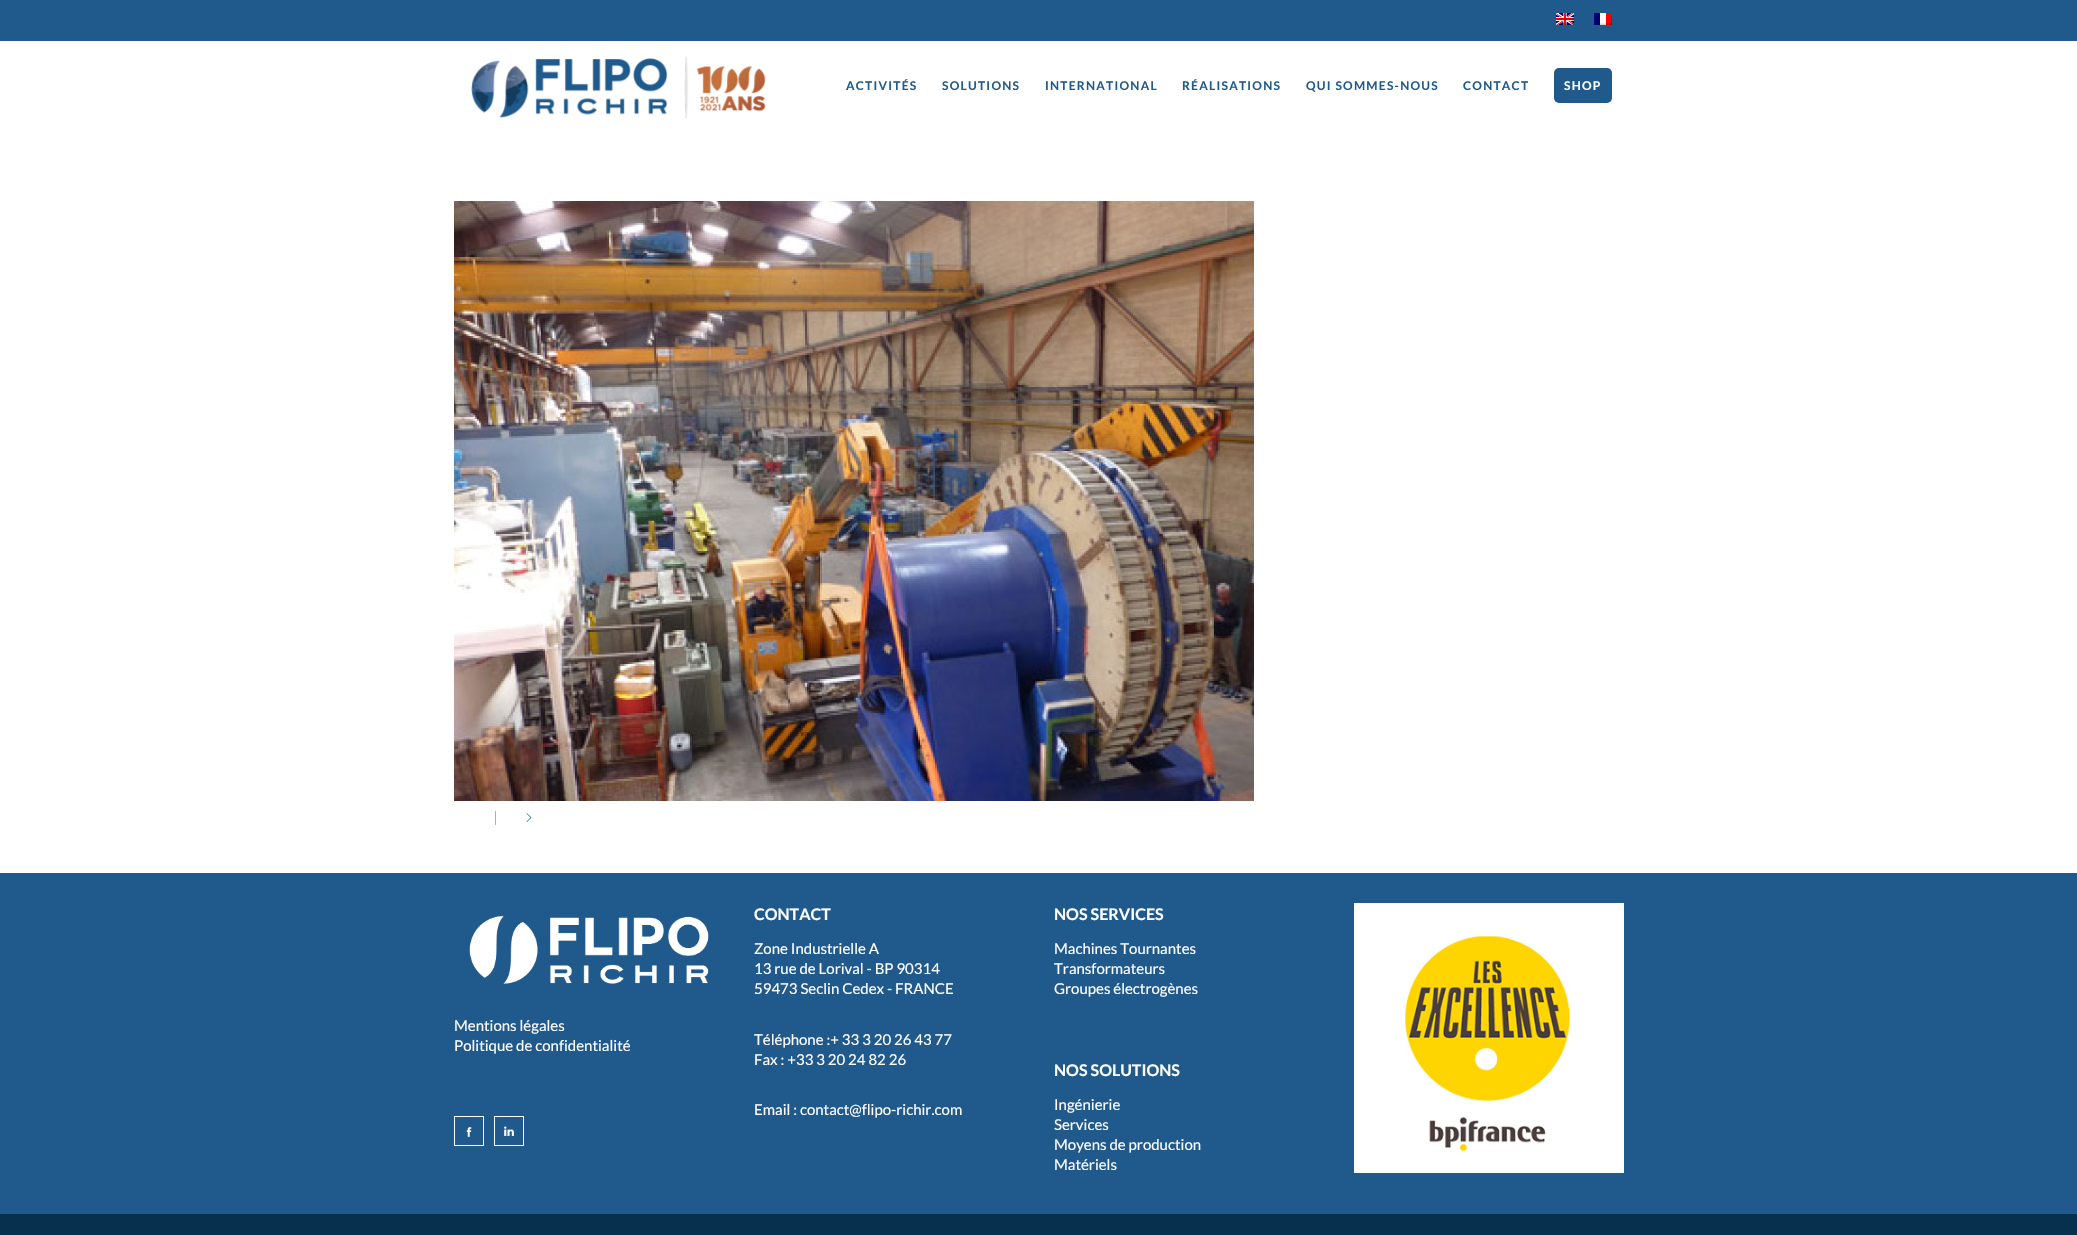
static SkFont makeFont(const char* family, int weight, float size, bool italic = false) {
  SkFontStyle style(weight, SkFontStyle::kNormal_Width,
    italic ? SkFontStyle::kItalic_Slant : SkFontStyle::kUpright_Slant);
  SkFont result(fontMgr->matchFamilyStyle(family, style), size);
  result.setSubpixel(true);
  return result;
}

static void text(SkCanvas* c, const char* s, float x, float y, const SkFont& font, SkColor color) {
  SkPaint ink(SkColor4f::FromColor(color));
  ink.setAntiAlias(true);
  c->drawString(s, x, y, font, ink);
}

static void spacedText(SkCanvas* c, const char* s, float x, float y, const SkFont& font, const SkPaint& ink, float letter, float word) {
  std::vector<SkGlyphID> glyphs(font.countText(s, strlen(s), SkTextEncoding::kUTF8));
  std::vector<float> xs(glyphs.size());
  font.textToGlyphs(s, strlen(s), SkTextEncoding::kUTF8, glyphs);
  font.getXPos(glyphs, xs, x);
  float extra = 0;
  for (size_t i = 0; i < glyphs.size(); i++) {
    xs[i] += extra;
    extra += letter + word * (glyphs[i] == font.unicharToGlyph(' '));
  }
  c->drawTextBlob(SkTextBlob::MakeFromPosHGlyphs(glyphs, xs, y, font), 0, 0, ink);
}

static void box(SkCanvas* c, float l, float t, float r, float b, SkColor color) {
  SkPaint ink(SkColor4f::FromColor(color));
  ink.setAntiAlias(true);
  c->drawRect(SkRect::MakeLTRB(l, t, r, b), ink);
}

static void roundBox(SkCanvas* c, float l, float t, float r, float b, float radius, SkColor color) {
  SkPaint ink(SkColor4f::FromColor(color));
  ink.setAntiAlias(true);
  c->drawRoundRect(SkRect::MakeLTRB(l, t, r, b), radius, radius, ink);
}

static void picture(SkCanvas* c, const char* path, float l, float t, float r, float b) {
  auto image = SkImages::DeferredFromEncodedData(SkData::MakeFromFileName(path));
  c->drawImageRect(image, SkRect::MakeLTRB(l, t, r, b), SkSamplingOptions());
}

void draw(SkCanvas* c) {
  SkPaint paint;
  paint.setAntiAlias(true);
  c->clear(0xffffffff);
  box(c, 0, 0, 2077, 41, 0xff205a8c);
  picture(c, "img_01.png", 1556, 13, 1574, 25);
  picture(c, "img_02.png", 1594, 13, 1612, 25);
  picture(c, "img_03.png", 471, 56, 766, 119);
  SkFont face1 = makeFont("Lato", 700, 12);
  paint.setColor(0xff205a8c);
  spacedText(c, "ACTIVITÉS", 846, 90, face1, paint, 1.25f, 0);
  spacedText(c, "SOLUTIONS", 942, 90, face1, paint, 1.25f, 0);
  spacedText(c, "INTERNATIONAL", 1045, 90, face1, paint, 1.25f, 0);
  spacedText(c, "RÉALISATIONS", 1182, 90, face1, paint, 1.25f, 0);
  spacedText(c, "QUI SOMMES-NOUS", 1306, 90, face1, paint, 1.25f, 0);
  spacedText(c, "CONTACT", 1463, 90, face1, paint, 1.25f, 0);
  roundBox(c, 1554, 68, 1612, 103, 5, 0xff205a8c);
  paint.setColor(0xffffffff);
  spacedText(c, "SHOP", 1564, 90, face1, paint, 1.25f, 0);
  picture(c, "img_04.png", 454, 201, 1254, 801);
  box(c, 495, 811, 496, 825, 0xffacaeb7);
  picture(c, "img_05.png", 526, 813, 532, 822);
  box(c, 0, 873, 2077, 1214, 0xff205a8c);
  picture(c, "img_06.png", 469, 915, 709, 984);
  SkFont face2 = makeFont("Lato", 400, 15);
  text(c, "Mentions légales", 454, 1031, face2, 0xffffffff);
  text(c, "Politique de confidentialité", 454, 1051, face2, 0xffffffff);
  paint.setStyle(SkPaint::kStroke_Style);
  paint.setStrokeWidth(1);
  c->drawRect(SkRect::MakeLTRB(454.5f, 1116.5f, 483.5f, 1145.5f), paint);
  picture(c, "img_07.png", 466, 1127, 472, 1137);
  c->drawRect(SkRect::MakeLTRB(494.5f, 1116.5f, 523.5f, 1145.5f), paint);
  picture(c, "img_08.png", 504, 1126, 514, 1136);
  SkFont face3 = makeFont("Lato", 700, 16);
  text(c, "CONTACT", 754, 920, face3, 0xffffffff);
  text(c, "Zone Industrielle A", 754, 954, face2, 0xffffffff);
  text(c, "13 rue de Lorival - BP 90314", 754, 974, face2, 0xffffffff);
  text(c, "59473 Seclin Cedex - FRANCE", 754, 994, face2, 0xffffffff);
  text(c, "Téléphone :+ 33 3 20 26 43 77", 754, 1045, face2, 0xffffffff);
  text(c, "Fax : +33 3 20 24 82 26", 754, 1065, face2, 0xffffffff);
  text(c, "Email : contact@flipo-richir.com", 754, 1115, face2, 0xffffffff);
  text(c, "NOS SERVICES", 1054, 920, face3, 0xffffffff);
  text(c, "Machines Tournantes", 1054, 954, face2, 0xffffffff);
  text(c, "Transformateurs", 1054, 974, face2, 0xffffffff);
  text(c, "Groupes électrogènes", 1054, 994, face2, 0xffffffff);
  text(c, "NOS SOLUTIONS", 1054, 1076, face3, 0xffffffff);
  text(c, "Ingénierie", 1054, 1110, face2, 0xffffffff);
  text(c, "Services", 1054, 1130, face2, 0xffffffff);
  text(c, "Moyens de production", 1054, 1150, face2, 0xffffffff);
  text(c, "Matériels", 1054, 1170, face2, 0xffffffff);
  picture(c, "img_09.png", 1354, 903, 1624, 1173);
  box(c, 0, 1214, 2077, 1235, 0xff07304f);
}
